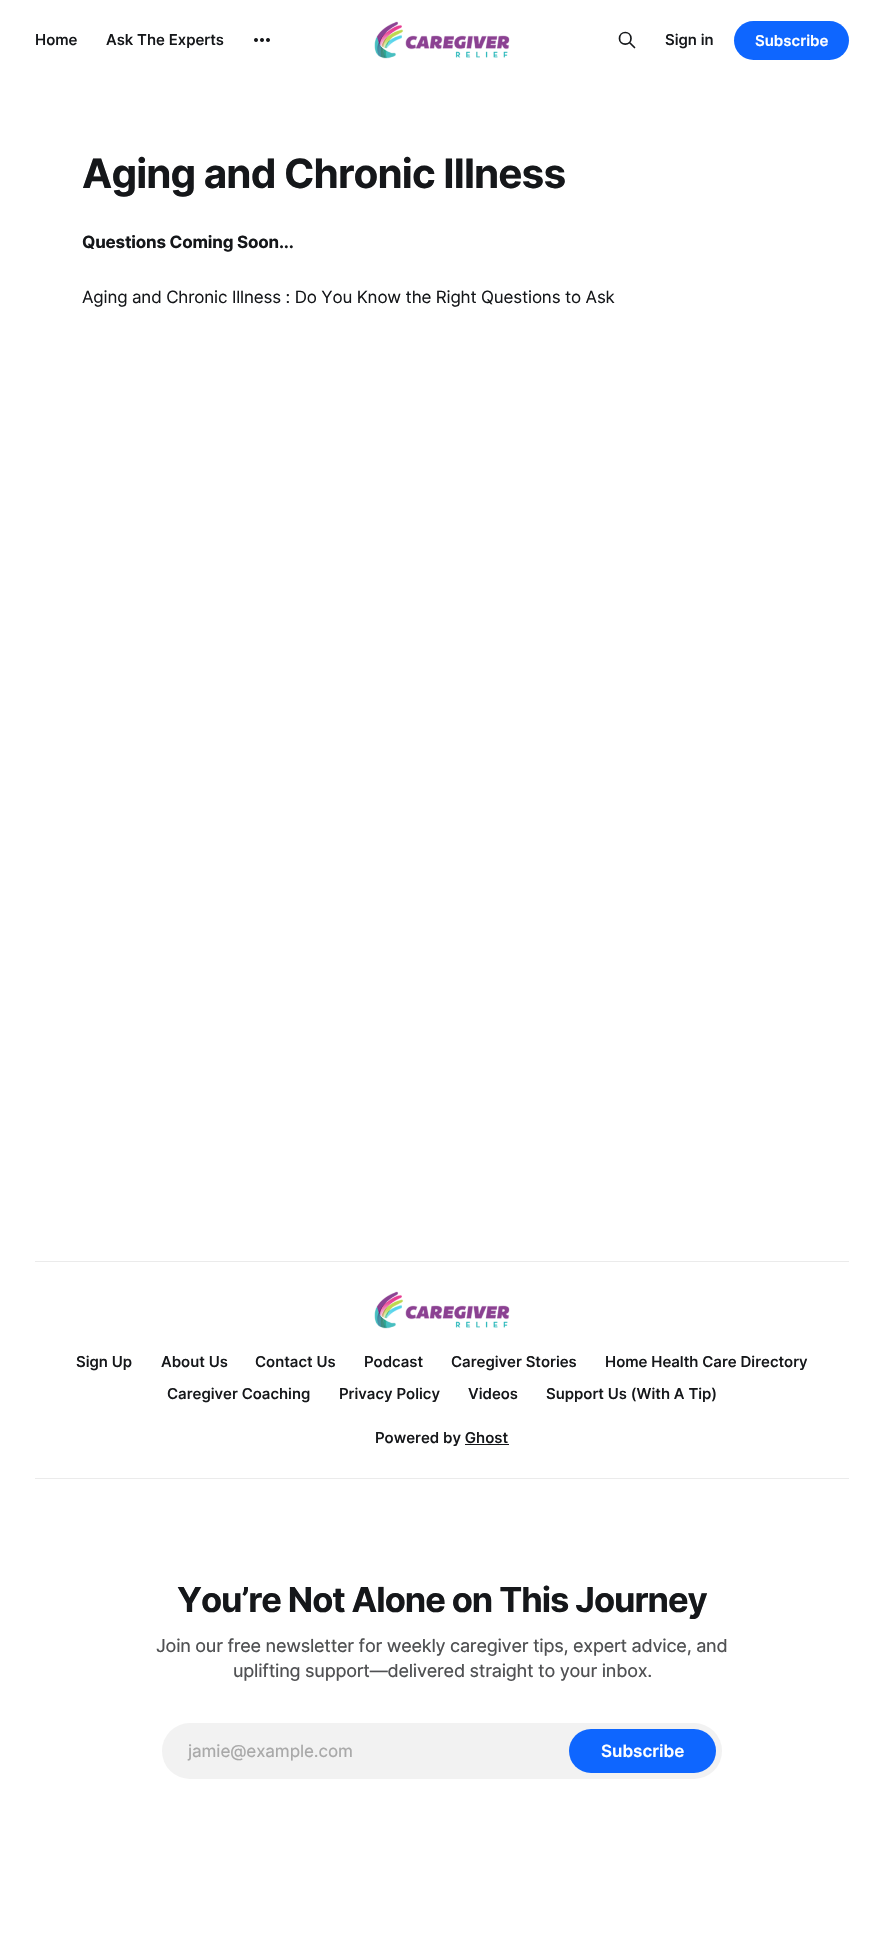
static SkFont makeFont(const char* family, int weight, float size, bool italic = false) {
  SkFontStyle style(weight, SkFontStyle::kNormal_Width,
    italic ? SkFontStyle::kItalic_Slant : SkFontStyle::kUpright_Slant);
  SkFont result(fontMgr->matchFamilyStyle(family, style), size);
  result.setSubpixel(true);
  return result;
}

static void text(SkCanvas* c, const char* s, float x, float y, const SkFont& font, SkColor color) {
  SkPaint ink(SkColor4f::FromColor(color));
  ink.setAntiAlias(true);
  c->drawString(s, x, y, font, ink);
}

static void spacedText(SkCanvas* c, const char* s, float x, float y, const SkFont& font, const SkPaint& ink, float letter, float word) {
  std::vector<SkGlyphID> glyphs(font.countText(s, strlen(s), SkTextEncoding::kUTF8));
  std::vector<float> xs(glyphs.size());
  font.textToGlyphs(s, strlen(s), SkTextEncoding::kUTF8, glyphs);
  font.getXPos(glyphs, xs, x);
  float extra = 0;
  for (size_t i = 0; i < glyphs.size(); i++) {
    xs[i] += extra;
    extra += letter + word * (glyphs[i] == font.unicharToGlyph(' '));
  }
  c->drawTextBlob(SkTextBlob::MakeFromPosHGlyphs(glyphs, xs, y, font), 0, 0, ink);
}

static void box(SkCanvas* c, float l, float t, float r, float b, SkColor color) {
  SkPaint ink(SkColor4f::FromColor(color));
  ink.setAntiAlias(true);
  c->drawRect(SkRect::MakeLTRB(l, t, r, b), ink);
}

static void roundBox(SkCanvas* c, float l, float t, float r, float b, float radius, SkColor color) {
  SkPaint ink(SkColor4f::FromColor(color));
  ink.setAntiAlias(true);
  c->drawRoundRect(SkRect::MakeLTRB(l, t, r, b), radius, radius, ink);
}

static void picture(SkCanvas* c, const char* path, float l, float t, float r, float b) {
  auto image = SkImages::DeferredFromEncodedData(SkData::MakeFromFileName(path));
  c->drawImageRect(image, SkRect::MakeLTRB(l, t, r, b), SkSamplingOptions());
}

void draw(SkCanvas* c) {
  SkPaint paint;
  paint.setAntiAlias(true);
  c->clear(0xffffffff);
  SkFont face1 = makeFont("Inter", 500, 15);
  text(c, "Home", 35, 45, face1, 0xff15171a);
  text(c, "Ask The Experts", 106, 45, face1, 0xff15171a);
  picture(c, "img_01.png", 254, 38, 270, 42);
  picture(c, "img_02.png", 374, 21, 510, 59);
  paint.setStyle(SkPaint::kStroke_Style);
  paint.setStrokeWidth(1.7f);
  paint.setStrokeCap(SkPaint::kRound_Cap);
  paint.setStrokeJoin(SkPaint::kRound_Join);
  paint.setColor(0xff15171a);
  c->drawPath(SkPathBuilder().moveTo(634.5f, 47.5f).lineTo(629.5f, 42.5f).moveTo(631, 38.5f).cubicTo(631, 46, 619.5f, 46, 619.5f, 38.5f).cubicTo(619.5f, 30.5f, 631, 30.5f, 631, 38.5f).close().detach(), paint);
  text(c, "Sign in", 665, 45, face1, 0xff15171a);
  roundBox(c, 734, 21, 849, 60, 19.5f, 0xff0e66ff);
  SkFont face2 = makeFont("Inter", 600, 15);
  text(c, "Subscribe", 755, 46, face2, 0xffffffff);
  SkFont face3 = makeFont("Inter", 700, 40.5f);
  paint.setStyle(SkPaint::kFill_Style);
  spacedText(c, "Aging and Chronic Illness", 82, 188, face3, paint, -0.9f, 0);
  SkFont face4 = makeFont("Inter", 700, 17);
  spacedText(c, "Questions Coming Soon...", 82, 248, face4, paint, -0.17f, 0);
  SkFont face5 = makeFont("Inter", 400, 17);
  spacedText(c, "Aging and Chronic Illness : Do You Know the Right Questions to Ask", 82, 303, face5, paint, -0.17f, 0);
  box(c, 35, 1261, 849, 1262, 0xffebebeb);
  box(c, 35, 1478, 849, 1479, 0xffebebeb);
  picture(c, "img_02.png", 374, 1291, 510, 1329);
  text(c, "Sign Up", 76, 1367, face1, 0xff15171a);
  text(c, "About Us", 161, 1367, face1, 0xff15171a);
  text(c, "Contact Us", 255, 1367, face1, 0xff15171a);
  text(c, "Podcast", 364, 1367, face1, 0xff15171a);
  text(c, "Caregiver Stories", 451, 1367, face1, 0xff15171a);
  text(c, "Home Health Care Directory", 605, 1367, face1, 0xff15171a);
  text(c, "Caregiver Coaching", 167, 1399, face1, 0xff15171a);
  text(c, "Privacy Policy", 339, 1399, face1, 0xff15171a);
  text(c, "Videos", 468, 1399, face1, 0xff15171a);
  text(c, "Support Us (With A Tip)", 546, 1399, face1, 0xff15171a);
  text(c, "Powered by Ghost", 375, 1443, face1, 0xff15171a);
  box(c, 465, 1444, 509, 1445, 0xff15171a);
  SkFont face6 = makeFont("Inter", 700, 34.5f);
  spacedText(c, "You’re Not Alone on This Journey", 177, 1612, face6, paint, -1.05f, 0);
  SkFont face7 = makeFont("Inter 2", 400, 18);
  paint.setColor(0xff505153);
  spacedText(c, "Join our free newsletter for weekly caregiver tips, expert advice, and", 156, 1652, face7, paint, -0.25f, 0);
  spacedText(c, "uplifting support—delivered straight to your inbox.", 233, 1677, face7, paint, -0.25f, 0);
  roundBox(c, 162, 1723, 722, 1779, 28, 0xfff2f2f2);
  SkFont face8 = makeFont("Inter 2", 400, 17);
  paint.setColor(0xffa9a9a9);
  spacedText(c, "jamie@example.com", 188, 1757, face8, paint, -0.1f, 0);
  roundBox(c, 569, 1729, 716, 1773, 22, 0xff0e66ff);
  SkFont face9 = makeFont("Inter", 600, 17);
  text(c, "Subscribe", 601, 1757, face9, 0xffffffff);
}
